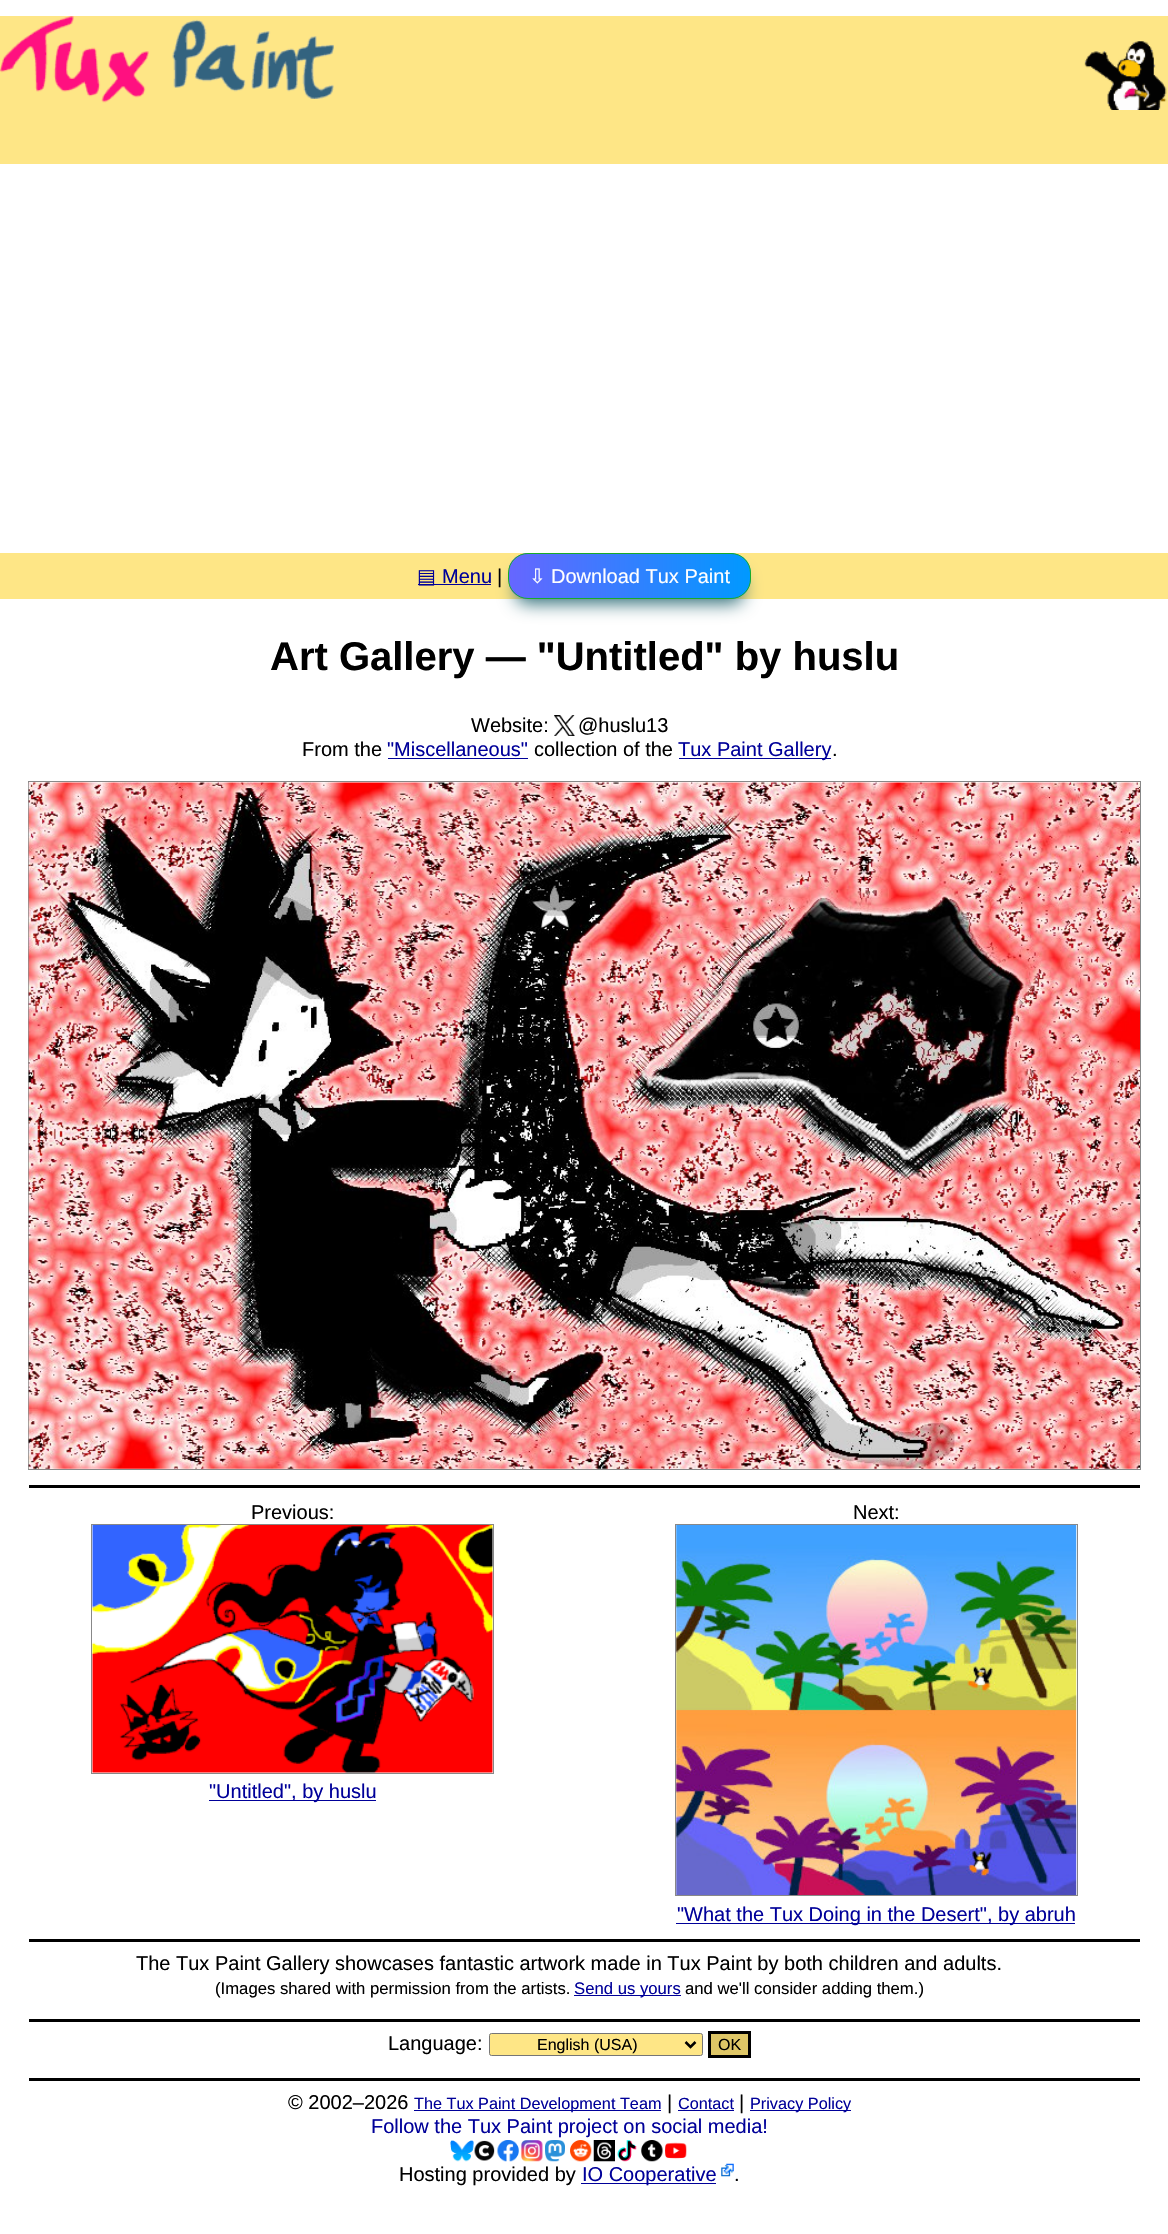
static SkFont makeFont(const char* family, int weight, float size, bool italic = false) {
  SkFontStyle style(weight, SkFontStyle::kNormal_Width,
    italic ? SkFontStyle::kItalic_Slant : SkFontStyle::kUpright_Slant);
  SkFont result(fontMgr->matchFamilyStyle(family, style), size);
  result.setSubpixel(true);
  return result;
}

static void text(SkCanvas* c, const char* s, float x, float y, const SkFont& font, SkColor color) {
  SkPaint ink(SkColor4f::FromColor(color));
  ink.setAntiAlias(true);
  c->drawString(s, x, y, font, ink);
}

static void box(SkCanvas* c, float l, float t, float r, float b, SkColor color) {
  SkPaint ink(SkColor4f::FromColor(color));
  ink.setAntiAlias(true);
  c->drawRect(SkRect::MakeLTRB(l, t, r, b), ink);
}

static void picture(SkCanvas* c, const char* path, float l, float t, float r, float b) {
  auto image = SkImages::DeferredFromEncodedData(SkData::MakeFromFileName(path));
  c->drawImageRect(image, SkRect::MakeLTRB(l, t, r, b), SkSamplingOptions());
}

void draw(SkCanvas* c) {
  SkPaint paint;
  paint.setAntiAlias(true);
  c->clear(0xffffffff);
  box(c, 0, 16, 1168, 164, 0xfffee686);
  picture(c, "img_01.png", 0, 16, 334, 103);
  picture(c, "img_02.png", 1084, 41, 1167, 110);
  box(c, 0, 553, 1168, 599, 0xfffee686);
  box(c, 418, 584, 491, 585, 0xff000099);
  SkFont face1 = makeFont("DejaVu Sans", 400, 20);
  text(c, "▤", 417, 583, face1, 0xff000099);
  SkFont face2 = makeFont("Liberation Sans", 400, 20);
  text(c, "Menu", 442, 583, face2, 0xff000099);
  text(c, "|", 497, 583, face2, 0xff000000);
  paint.setColor(0xff276873);
  paint.setMaskFilter(SkMaskFilter::MakeBlur(kNormal_SkBlurStyle, 9));
  c->drawRoundRect(SkRect::MakeLTRB(516, 574, 743, 603), 11, 11, paint);
  paint.setMaskFilter(nullptr);
  c->save();
  c->clipPath(SkPathBuilder().moveTo(528, 553).lineTo(731, 553).cubicTo(742, 553, 751, 562, 751, 573).lineTo(751, 579).cubicTo(751, 590, 742, 599, 731, 599).lineTo(528, 599).cubicTo(517, 599, 508, 590, 508, 579).lineTo(508, 573).cubicTo(508, 562, 517, 553, 528, 553).close().detach(), true);
  {
    const SkColor colors[] = {0xff6666ff, 0xff0099ff, 0xff00ff00, 0xffff3399, 0xff6666ff};
    const float stops[] = {0, 0.25f, 0.5f, 0.75f, 1};
    const SkPoint ends[] = {{509, 576}, {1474, 576}};
    paint.setShader(SkGradientShader::MakeLinear(ends, colors, stops, 5, SkTileMode::kClamp));
    paint.setAlpha(255);
  }
  c->drawPath(SkPathBuilder().moveTo(509, 553).lineTo(731, 553).cubicTo(742, 553, 751, 562, 751, 573).lineTo(751, 579).cubicTo(751, 590, 742, 599, 731, 599).lineTo(509, 599).close().detach(), paint);
  c->restore();
  paint.setStyle(SkPaint::kStroke_Style);
  paint.setStrokeWidth(1);
  paint.setShader(nullptr);
  paint.setColor(0xff18ab29);
  c->drawRoundRect(SkRect::MakeLTRB(508.5f, 553.5f, 750.5f, 598.5f), 19.5f, 19.5f, paint);
  text(c, "⇩", 529, 583, face1, 0xffffffff);
  text(c, "Download Tux Paint", 551, 583, face2, 0xffffffff);
  SkFont face3 = makeFont("Liberation Sans", 700, 40);
  text(c, "Art Gallery — \"Untitled\" by huslu", 270, 670, face3, 0xff000000);
  text(c, "Website:", 471, 732, face2, 0xff000000);
  picture(c, "img_03.png", 554, 715, 575, 736);
  text(c, "@huslu13", 578, 732, face2, 0xff000000);
  text(c, "From the", 302, 756, face2, 0xff000000);
  text(c, "\"Miscellaneous\"", 387, 756, face2, 0xff000099);
  box(c, 388, 758, 528, 759, 0xff000099);
  text(c, "collection of the", 534, 756, face2, 0xff000000);
  box(c, 679, 758, 831, 759, 0xff000099);
  text(c, "Tux Paint Gallery", 678, 756, face2, 0xff000099);
  text(c, ".", 832, 756, face2, 0xff000000);
  paint.setColor(0xff888888);
  c->drawRect(SkRect::MakeLTRB(28.5f, 781.5f, 1140.5f, 1469.5f), paint);
  picture(c, "img_04.png", 28, 782, 1140, 1469);
  box(c, 29, 1485, 1140, 1488, 0xff000000);
  text(c, "Previous:", 251, 1519, face2, 0xff000000);
  c->drawRect(SkRect::MakeLTRB(91.5f, 1524.5f, 493.5f, 1773.5f), paint);
  picture(c, "img_05.png", 92, 1525, 493, 1773);
  box(c, 209, 1800, 376, 1801, 0xff000099);
  text(c, "\"Untitled\", by huslu", 209, 1798, face2, 0xff000099);
  text(c, "Next:", 853, 1519, face2, 0xff000000);
  c->drawRect(SkRect::MakeLTRB(675.5f, 1524.5f, 1077.5f, 1895.5f), paint);
  picture(c, "img_06.png", 676, 1525, 1077, 1895);
  box(c, 676, 1923, 1075, 1924, 0xff000099);
  text(c, "\"What the Tux Doing in the Desert\", by abruh", 677, 1921, face2, 0xff000099);
  box(c, 29, 1939, 1140, 1942, 0xff000000);
  text(c, "The Tux Paint Gallery showcases fantastic artwork made in Tux Paint by both children and adults.", 136, 1970, face2, 0xff000000);
  SkFont face4 = makeFont("Liberation Sans", 400, 16.7f);
  text(c, "(Images shared with permission from the artists.", 215, 1994, face4, 0xff000000);
  box(c, 574, 1995, 681, 1996, 0xff000099);
  text(c, "Send us yours", 574, 1994, face4, 0xff000099);
  text(c, "and we'll consider adding them.)", 685, 1994, face4, 0xff000000);
  box(c, 29, 2019, 1140, 2022, 0xff000000);
  text(c, "Language:", 388, 2050, face2, 0xff000000);
  paint.setStyle(SkPaint::kFill_Style);
  paint.setColor(0xfffee686);
  c->drawRoundRect(SkRect::MakeLTRB(489.5f, 2033.5f, 702.5f, 2055.5f), 2, 2, paint);
  paint.setStyle(SkPaint::kStroke_Style);
  paint.setColor(0xff767676);
  c->drawRoundRect(SkRect::MakeLTRB(489.5f, 2033.5f, 702.5f, 2055.5f), 2, 2, paint);
  paint.setStrokeWidth(2.5f);
  paint.setColor(0xff000000);
  c->drawPath(SkPathBuilder().moveTo(685.5f, 2042).lineTo(690.5f, 2047).lineTo(695.5f, 2042).detach(), paint);
  SkFont face5 = makeFont("Liberation Sans", 400, 16);
  text(c, "English (USA)", 537, 2050, face5, 0xff000000);
  paint.setStyle(SkPaint::kFill_Style);
  paint.setColor(0xffdec666);
  c->drawRect(SkRect::MakeLTRB(709.5f, 2032.5f, 749.5f, 2056.5f), paint);
  paint.setStyle(SkPaint::kStroke_Style);
  paint.setStrokeWidth(3);
  paint.setColor(0xff000000);
  c->drawRect(SkRect::MakeLTRB(709.5f, 2032.5f, 749.5f, 2056.5f), paint);
  text(c, "OK", 718, 2050, face5, 0xff000000);
  box(c, 29, 2078, 1140, 2081, 0xff000000);
  text(c, "© 2002–2026", 288, 2109, face2, 0xff000000);
  box(c, 414, 2110, 661, 2111, 0xff000099);
  SkFont face6 = makeFont("Liberation Sans", 400, 16.25f);
  text(c, "The Tux Paint Development Team", 414, 2109, face6, 0xff000099);
  text(c, "|", 667, 2109, face2, 0xff000000);
  text(c, "Contact", 678, 2109, face6, 0xff000099);
  box(c, 678, 2110, 734, 2111, 0xff000099);
  text(c, "|", 739, 2109, face2, 0xff000000);
  box(c, 750, 2110, 851, 2111, 0xff000099);
  text(c, "Privacy Policy", 750, 2109, face6, 0xff000099);
  text(c, "Follow the Tux Paint project on social media!", 371, 2133, face2, 0xff000099);
  picture(c, "img_07.png", 450, 2140, 474, 2162);
  picture(c, "img_08.png", 473, 2140, 495, 2161);
  picture(c, "img_09.png", 497, 2140, 519, 2162);
  picture(c, "img_10.png", 521, 2140, 543, 2162);
  picture(c, "img_11.png", 545, 2140, 565, 2162);
  picture(c, "img_12.png", 570, 2140, 592, 2162);
  picture(c, "img_13.png", 593, 2140, 615, 2162);
  picture(c, "img_14.png", 617, 2140, 637, 2162);
  picture(c, "img_15.png", 641, 2140, 663, 2162);
  picture(c, "img_16.png", 665, 2142, 687, 2159);
  text(c, "Hosting provided by", 399, 2181, face2, 0xff000000);
  box(c, 581, 2183, 716, 2184, 0xff000099);
  text(c, "IO Cooperative", 582, 2181, face2, 0xff000099);
  picture(c, "img_17.png", 721, 2163, 734, 2177);
  text(c, ".", 734, 2181, face2, 0xff000000);
}
